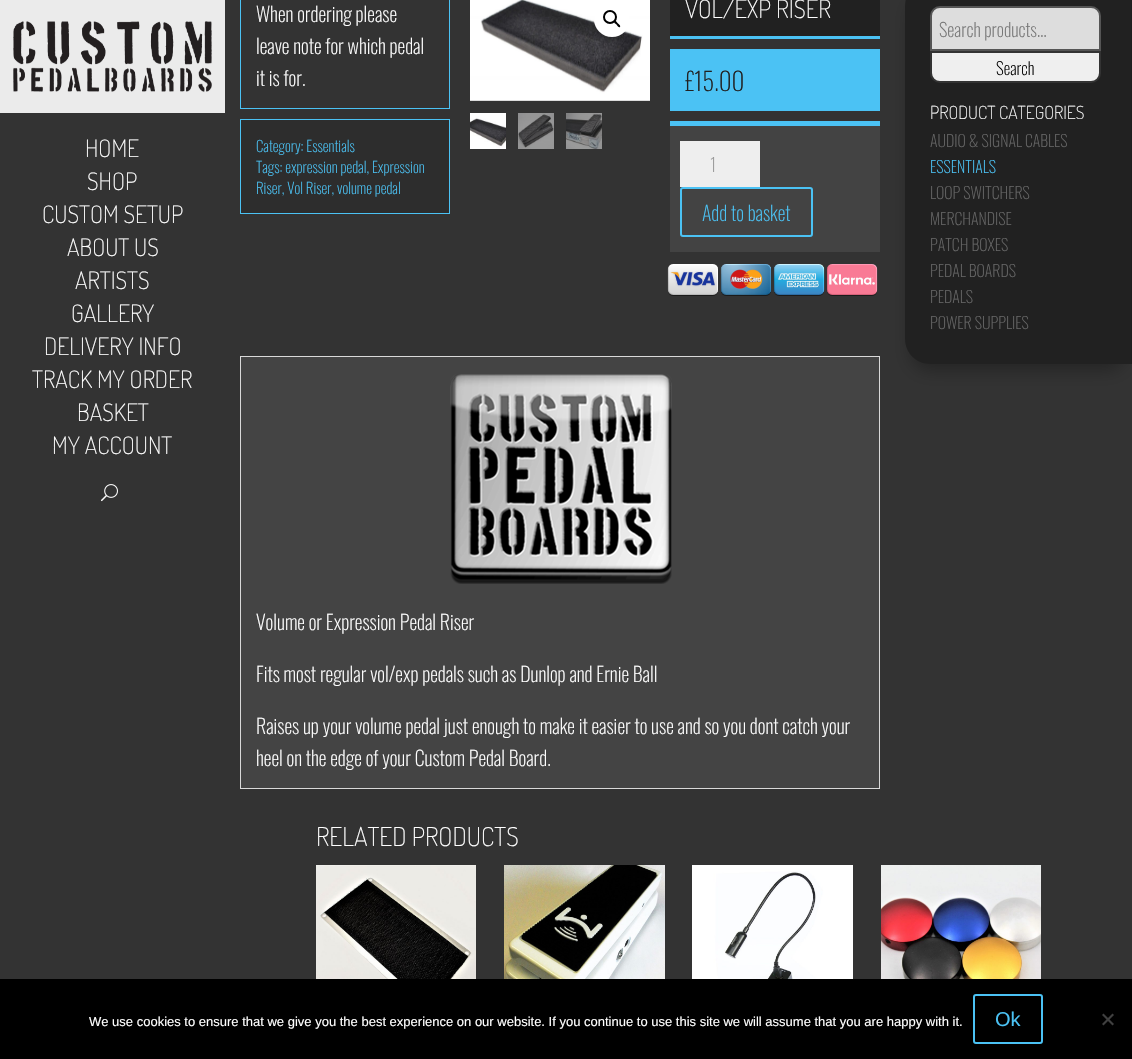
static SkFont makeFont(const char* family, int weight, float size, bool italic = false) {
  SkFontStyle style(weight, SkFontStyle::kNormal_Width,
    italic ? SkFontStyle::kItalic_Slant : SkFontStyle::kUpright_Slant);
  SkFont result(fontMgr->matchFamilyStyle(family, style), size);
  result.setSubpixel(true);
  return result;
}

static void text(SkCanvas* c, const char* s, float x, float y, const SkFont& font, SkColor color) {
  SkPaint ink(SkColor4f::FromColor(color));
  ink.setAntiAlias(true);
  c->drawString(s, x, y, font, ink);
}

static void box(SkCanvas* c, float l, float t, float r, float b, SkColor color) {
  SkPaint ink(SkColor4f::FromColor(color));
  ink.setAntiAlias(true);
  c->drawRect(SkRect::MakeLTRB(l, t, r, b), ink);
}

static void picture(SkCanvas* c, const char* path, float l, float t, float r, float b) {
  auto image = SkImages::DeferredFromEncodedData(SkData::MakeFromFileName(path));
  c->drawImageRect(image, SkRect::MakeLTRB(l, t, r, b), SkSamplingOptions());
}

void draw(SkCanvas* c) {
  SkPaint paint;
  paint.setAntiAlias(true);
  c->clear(0xff333333);
  picture(c, "img_01.png", 0, 0, 225, 113);
  SkFont face1 = makeFont("Dosis", 200, 24);
  text(c, "HOME", 85, 157, face1, 0xffffffff);
  text(c, "SHOP", 87, 190, face1, 0xffffffff);
  text(c, "CUSTOM SETUP", 42, 223, face1, 0xffffffff);
  text(c, "ABOUT US", 67, 256, face1, 0xffffffff);
  text(c, "ARTISTS", 75, 289, face1, 0xffffffff);
  text(c, "GALLERY", 71, 322, face1, 0xffffffff);
  text(c, "DELIVERY INFO", 44, 355, face1, 0xffffffff);
  text(c, "TRACK MY ORDER", 32, 388, face1, 0xffffffff);
  text(c, "BASKET", 77, 421, face1, 0xffffffff);
  text(c, "MY ACCOUNT", 52, 454, face1, 0xffffffff);
  picture(c, "img_02.png", 101, 484, 118, 502);
  paint.setStyle(SkPaint::kStroke_Style);
  paint.setStrokeWidth(1);
  paint.setColor(0xff4bc2f4);
  c->drawRect(SkRect::MakeLTRB(240.5f, -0.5f, 449.5f, 108.5f), paint);
  SkFont face2 = makeFont("Oswald", 200, 20);
  text(c, "When ordering please", 256, 22, face2, 0xffffffff);
  text(c, "leave note for which pedal", 256, 54, face2, 0xffffffff);
  text(c, "it is for.", 256, 86, face2, 0xffffffff);
  paint.setStyle(SkPaint::kFill_Style);
  paint.setColor(0xff2d2d2d);
  c->drawRect(SkRect::MakeLTRB(240.5f, 119.5f, 449.5f, 213.5f), paint);
  paint.setStyle(SkPaint::kStroke_Style);
  paint.setColor(0xff4bc2f4);
  c->drawRect(SkRect::MakeLTRB(240.5f, 119.5f, 449.5f, 213.5f), paint);
  SkFont face3 = makeFont("Oswald", 200, 15);
  text(c, "Category: Essentials", 256, 152, face3, 0xff4bc2f4);
  text(c, "Tags: expression pedal, Expression", 256, 173, face3, 0xff4bc2f4);
  text(c, "Riser, Vol Riser, volume pedal", 256, 194, face3, 0xff4bc2f4);
  picture(c, "img_03.png", 470, 0, 650, 101);
  paint.setStyle(SkPaint::kFill_Style);
  paint.setColor(0xffffffff);
  c->drawCircle(612, 19, 18, paint);
  paint.setStyle(SkPaint::kStroke_Style);
  paint.setStrokeWidth(2);
  paint.setColor(0xff000000);
  c->drawCircle(610, 17, 6, paint);
  paint.setStyle(SkPaint::kFill_Style);
  c->drawPath(SkPathBuilder().moveTo(614.5f, 21).cubicTo(615.5f, 20, 617, 22.5f, 618, 23.5f).cubicTo(618.5f, 24, 621, 25.5f, 620, 27).cubicTo(619, 28, 617, 25.5f, 616.5f, 24.5f).cubicTo(616, 24, 613, 22.5f, 614.5f, 21).close().detach(), paint);
  picture(c, "img_04.png", 470, 113, 506, 149);
  picture(c, "img_05.png", 518, 113, 554, 149);
  picture(c, "img_06.png", 566, 113, 602, 149);
  box(c, 670, 0, 880, 36, 0xff212121);
  box(c, 670, 36, 880, 39, 0xff4bc2f4);
  SkFont face4 = makeFont("Dosis", 200, 25);
  text(c, "VOL/EXP RISER", 685, 18, face4, 0xffffffff);
  box(c, 670, 49, 880, 111, 0xff4bc2f4);
  SkFont face5 = makeFont("Oswald", 200, 25);
  text(c, "£15.00", 685, 91, face5, 0xff212121);
  box(c, 670, 126, 880, 252, 0xff434343);
  box(c, 670, 121, 880, 126, 0xff4bc2f4);
  box(c, 680, 141, 760, 187, 0xffeeeeee);
  SkFont face6 = makeFont("Oswald", 200, 18.5f);
  text(c, "1", 710, 172, face6, 0xff999999);
  paint.setStyle(SkPaint::kStroke_Style);
  paint.setColor(0xff4bc2f4);
  c->drawRoundRect(SkRect::MakeLTRB(681, 188, 812, 236), 2, 2, paint);
  text(c, "Add to basket", 702, 221, face2, 0xff4bc2f4);
  picture(c, "img_07.png", 667, 264, 878, 296);
  paint.setStrokeWidth(1);
  paint.setColor(0xffd9d9d9);
  c->drawRect(SkRect::MakeLTRB(240.5f, 356.5f, 879.5f, 788.5f), paint);
  box(c, 241, 357, 879, 788, 0xff444444);
  picture(c, "img_08.png", 450, 374, 672, 584);
  text(c, "Volume or Expression Pedal Riser", 256, 630, face2, 0xffffffff);
  text(c, "Fits most regular vol/exp pedals such as Dunlop and Ernie Ball", 256, 682, face2, 0xffffffff);
  text(c, "Raises up your volume pedal just enough to make it easier to use and so you dont catch your", 256, 734, face2, 0xffffffff);
  text(c, "heel on the edge of your Custom Pedal Board.", 256, 766, face2, 0xffffffff);
  paint.setStyle(SkPaint::kFill_Style);
  paint.setColor(0x4d000000);
  paint.setMaskFilter(SkMaskFilter::MakeBlur(kNormal_SkBlurStyle, 9));
  c->drawRoundRect(SkRect::MakeLTRB(911, -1, 1126, 370), 19, 19, paint);
  paint.setMaskFilter(nullptr);
  paint.setColor(0xff212121);
  c->drawPath(SkPathBuilder().moveTo(930, -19).lineTo(1132, -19).lineTo(1132, 364).lineTo(930, 364).cubicTo(916, 364, 905, 353, 905, 339).lineTo(905, 6).cubicTo(905, -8, 916, -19, 930, -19).close().detach(), paint);
  box(c, 1131, 0, 1132, 364, 0xff1e1e1e);
  paint.setColor(0xffdddddd);
  c->drawPath(SkPathBuilder().moveTo(940, 7).lineTo(1091, 7).cubicTo(1096, 7, 1100, 11, 1100, 16).lineTo(1100, 50).lineTo(931, 50).lineTo(931, 16).cubicTo(931, 11, 935, 7, 940, 7).close().detach(), paint);
  paint.setStyle(SkPaint::kStroke_Style);
  paint.setStrokeWidth(2);
  paint.setColor(0xff555555);
  c->drawPath(SkPathBuilder().moveTo(940, 7).lineTo(1091, 7).cubicTo(1096, 7, 1100, 11, 1100, 16).lineTo(1100, 50).lineTo(931, 50).lineTo(931, 16).cubicTo(931, 11, 935, 7, 940, 7).close().detach(), paint);
  text(c, "Search products…", 939, 37, face6, 0xff757575);
  paint.setStyle(SkPaint::kFill_Style);
  paint.setColor(0xffefefef);
  c->drawPath(SkPathBuilder().moveTo(931, 52).lineTo(1100, 52).lineTo(1100, 73).cubicTo(1100, 78, 1096, 82, 1091, 82).lineTo(940, 82).cubicTo(935, 82, 931, 78, 931, 73).close().detach(), paint);
  paint.setStyle(SkPaint::kStroke_Style);
  paint.setColor(0xff333333);
  c->drawPath(SkPathBuilder().moveTo(931, 52).lineTo(1100, 52).lineTo(1100, 73).cubicTo(1100, 78, 1096, 82, 1091, 82).lineTo(940, 82).cubicTo(935, 82, 931, 78, 931, 73).close().detach(), paint);
  SkFont face7 = makeFont("Oswald", 200, 17);
  text(c, "Search", 996, 75, face7, 0xff000000);
  SkFont face8 = makeFont("Dosis", 200, 18);
  text(c, "PRODUCT CATEGORIES", 930, 119, face8, 0xffffffff);
  SkFont face9 = makeFont("Oswald", 200, 16);
  text(c, "AUDIO & SIGNAL CABLES", 930, 147, face9, 0xff666666);
  text(c, "ESSENTIALS", 930, 173, face9, 0xff4bc2f4);
  text(c, "LOOP SWITCHERS", 930, 199, face9, 0xff666666);
  text(c, "MERCHANDISE", 930, 225, face9, 0xff666666);
  text(c, "PATCH BOXES", 930, 251, face9, 0xff666666);
  text(c, "PEDAL BOARDS", 930, 277, face9, 0xff666666);
  text(c, "PEDALS", 930, 303, face9, 0xff666666);
  text(c, "POWER SUPPLIES", 930, 329, face9, 0xff666666);
  SkFont face10 = makeFont("Dosis", 200, 26);
  text(c, "RELATED PRODUCTS", 316, 846, face10, 0xffffffff);
  picture(c, "img_09.png", 316, 865, 476, 979);
  picture(c, "img_10.png", 504, 865, 665, 979);
  picture(c, "img_11.png", 692, 865, 853, 979);
  picture(c, "img_12.png", 881, 865, 1041, 979);
  box(c, 0, 979, 1132, 1059, 0xff000000);
  SkFont face11 = makeFont("Liberation Sans", 400, 13);
  text(c, "We use cookies to ensure that we give you the best experience on our website. If you continue to use this site we will assume that you are happy with it.", 89, 1026, face11, 0xffffffff);
  paint.setColor(0xff4bc2f4);
  c->drawRoundRect(SkRect::MakeLTRB(974, 995, 1042, 1043), 2, 2, paint);
  SkFont face12 = makeFont("Liberation Sans", 400, 20);
  text(c, "Ok", 995, 1026, face12, 0xff4bc2f4);
  paint.setStyle(SkPaint::kFill_Style);
  paint.setColor(0xff404040);
  c->drawPath(SkPathBuilder().moveTo(1112.5f, 1013.5f).lineTo(1114, 1015).lineTo(1103.5f, 1025.5f).lineTo(1102, 1024).close().detach(), paint);
  c->drawPath(SkPathBuilder().moveTo(1102, 1015).lineTo(1103.5f, 1013.5f).lineTo(1114, 1024).lineTo(1112.5f, 1025.5f).close().detach(), paint);
}
